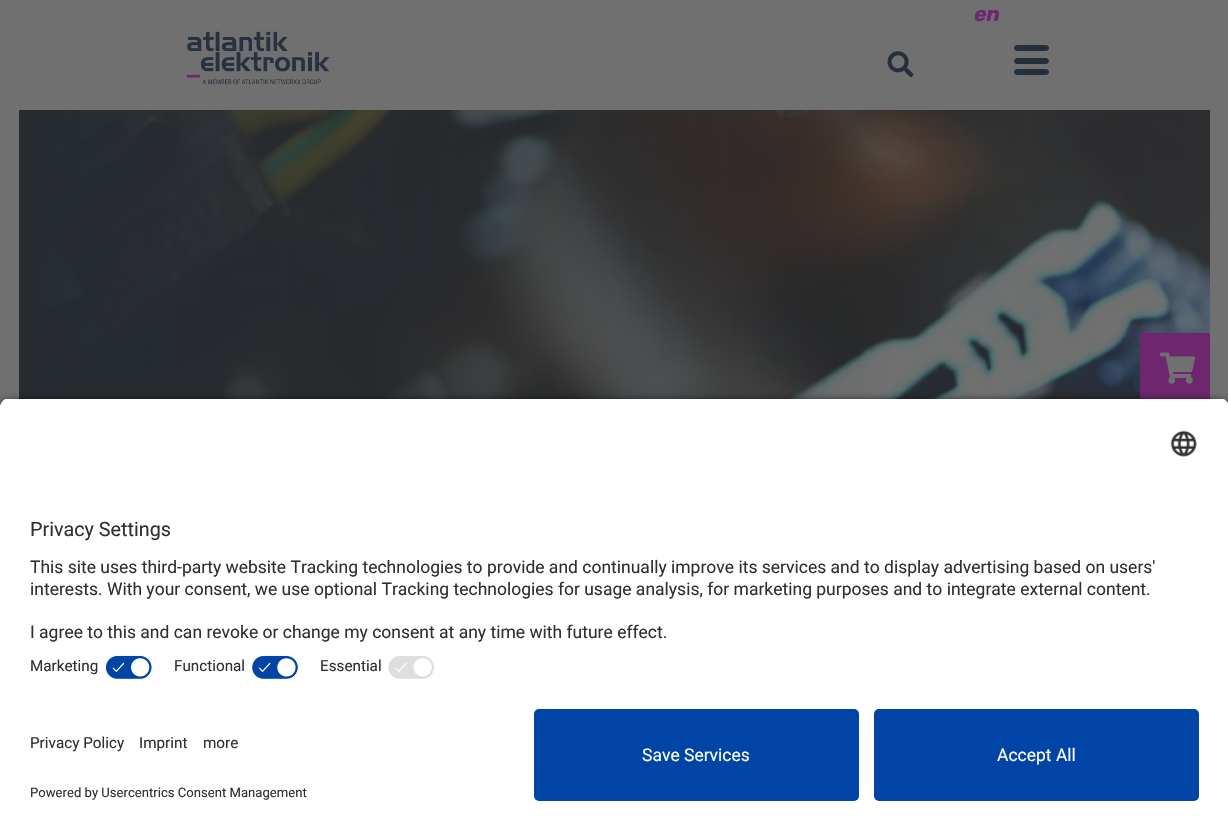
static SkFont makeFont(const char* family, int weight, float size, bool italic = false) {
  SkFontStyle style(weight, SkFontStyle::kNormal_Width,
    italic ? SkFontStyle::kItalic_Slant : SkFontStyle::kUpright_Slant);
  SkFont result(fontMgr->matchFamilyStyle(family, style), size);
  result.setSubpixel(true);
  return result;
}

static void text(SkCanvas* c, const char* s, float x, float y, const SkFont& font, SkColor color) {
  SkPaint ink(SkColor4f::FromColor(color));
  ink.setAntiAlias(true);
  c->drawString(s, x, y, font, ink);
}

static void box(SkCanvas* c, float l, float t, float r, float b, SkColor color) {
  SkPaint ink(SkColor4f::FromColor(color));
  ink.setAntiAlias(true);
  c->drawRect(SkRect::MakeLTRB(l, t, r, b), ink);
}

static void roundBox(SkCanvas* c, float l, float t, float r, float b, float radius, SkColor color) {
  SkPaint ink(SkColor4f::FromColor(color));
  ink.setAntiAlias(true);
  c->drawRoundRect(SkRect::MakeLTRB(l, t, r, b), radius, radius, ink);
}

static void picture(SkCanvas* c, const char* path, float l, float t, float r, float b) {
  auto image = SkImages::DeferredFromEncodedData(SkData::MakeFromFileName(path));
  c->drawImageRect(image, SkRect::MakeLTRB(l, t, r, b), SkSamplingOptions());
}

void draw(SkCanvas* c) {
  SkPaint paint;
  paint.setAntiAlias(true);
  c->clear(0xff707070);
  SkFont face1 = makeFont("Rubik", 700, 21, true);
  text(c, "en", 974, 21, face1, 0xff6e276e);
  picture(c, "img_01.png", 887, 51, 914, 78);
  paint.setColor(0xff242f3a);
  c->drawPath(SkPathBuilder().moveTo(1017, 45).lineTo(1031, 45).lineTo(1031, 51).lineTo(1017, 51).cubicTo(1015.5f, 51, 1014, 49.5f, 1014, 48).cubicTo(1014, 46.5f, 1015.5f, 45, 1017, 45).close().detach(), paint);
  c->drawPath(SkPathBuilder().moveTo(1031, 45).lineTo(1046, 45).cubicTo(1047.5f, 45, 1049, 46.5f, 1049, 48).cubicTo(1049, 49.5f, 1047.5f, 51, 1046, 51).lineTo(1031, 51).close().detach(), paint);
  c->drawPath(SkPathBuilder().moveTo(1017, 58).lineTo(1031, 58).lineTo(1031, 64).lineTo(1017, 64).cubicTo(1015.5f, 64, 1014, 62.5f, 1014, 61).cubicTo(1014, 59.5f, 1015.5f, 58, 1017, 58).close().detach(), paint);
  c->drawPath(SkPathBuilder().moveTo(1031, 58).lineTo(1046, 58).cubicTo(1047.5f, 58, 1049, 59.5f, 1049, 61).cubicTo(1049, 62.5f, 1047.5f, 64, 1046, 64).lineTo(1031, 64).close().detach(), paint);
  c->drawPath(SkPathBuilder().moveTo(1017, 69).lineTo(1031, 69).lineTo(1031, 75).lineTo(1017, 75).cubicTo(1015.5f, 75, 1014, 73.5f, 1014, 72).cubicTo(1014, 70.5f, 1015.5f, 69, 1017, 69).close().detach(), paint);
  c->drawPath(SkPathBuilder().moveTo(1031, 69).lineTo(1046, 69).cubicTo(1047.5f, 69, 1049, 70.5f, 1049, 72).cubicTo(1049, 73.5f, 1047.5f, 75, 1046, 75).lineTo(1031, 75).close().detach(), paint);
  picture(c, "img_02.png", 186, 31, 330, 85);
  picture(c, "img_03.png", 19, 110, 1210, 399);
  paint.setColor(0x29242424);
  paint.setMaskFilter(SkMaskFilter::MakeBlur(kNormal_SkBlurStyle, 4));
  c->drawRect(SkRect::MakeLTRB(1136, 336, 1206, 405), paint);
  paint.setMaskFilter(nullptr);
  box(c, 1140, 333, 1210, 399, 0xff6e276e);
  picture(c, "img_04.png", 1160, 352, 1196, 384);
  paint.setColor(0xcc000000);
  paint.setMaskFilter(SkMaskFilter::MakeBlur(kNormal_SkBlurStyle, 4.5f));
  c->drawRoundRect(SkRect::MakeLTRB(0, 401, 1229, 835), 10, 10, paint);
  paint.setMaskFilter(nullptr);
  c->save();
  c->clipPath(SkPathBuilder().moveTo(10, 398).lineTo(1219, 398).cubicTo(1224.5f, 398, 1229, 402.5f, 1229, 408).lineTo(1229, 699).lineTo(0, 699).lineTo(0, 408).cubicTo(0, 402.5f, 4.5f, 398, 10, 398).close().detach(), true);
  box(c, 0, 399, 1228, 699, 0xffffffff);
  box(c, 0, 399, 1228, 649, 0xffffffff);
  c->restore();
  picture(c, "img_05.png", 1170, 430, 1197, 457);
  SkFont face2 = makeFont("Roboto", 400, 19.75f);
  text(c, "Privacy Settings", 30, 536, face2, 0xff303030);
  SkFont face3 = makeFont("Roboto", 400, 17.5f);
  text(c, "This site uses third-party website Tracking technologies to provide and continually improve its services and to display advertising based on users'", 30, 573, face3, 0xff303030);
  text(c, "interests. With your consent, we use optional Tracking technologies for usage analysis, for marketing purposes and to integrate external content.", 30, 595, face3, 0xff303030);
  text(c, "I agree to this and can revoke or change my consent at any time with future effect.", 30, 638, face3, 0xff303030);
  SkFont face4 = makeFont("Roboto", 400, 15.25f);
  text(c, "Marketing", 30, 671, face4, 0xff303030);
  picture(c, "img_06.png", 105, 655, 153, 680);
  text(c, "Functional", 174, 671, face4, 0xff303030);
  picture(c, "img_07.png", 251, 655, 299, 680);
  text(c, "Essential", 320, 671, face4, 0xff303030);
  picture(c, "img_08.png", 388, 656, 434, 679);
  box(c, 0, 699, 1228, 831, 0xffffffff);
  text(c, "Privacy Policy", 30, 748, face4, 0xff303030);
  text(c, "Imprint", 139, 748, face4, 0xff303030);
  text(c, "more", 203, 748, face4, 0xff303030);
  SkFont face5 = makeFont("Roboto", 400, 13.1f);
  text(c, "Powered by Usercentrics Consent Management", 30, 797, face5, 0xff303030);
  roundBox(c, 534, 709, 859, 801, 5, 0xff0045a5);
  text(c, "Save Services", 642, 761, face3, 0xffffffff);
  roundBox(c, 874, 709, 1199, 801, 5, 0xff0045a5);
  text(c, "Accept All", 997, 761, face3, 0xffffffff);
}
